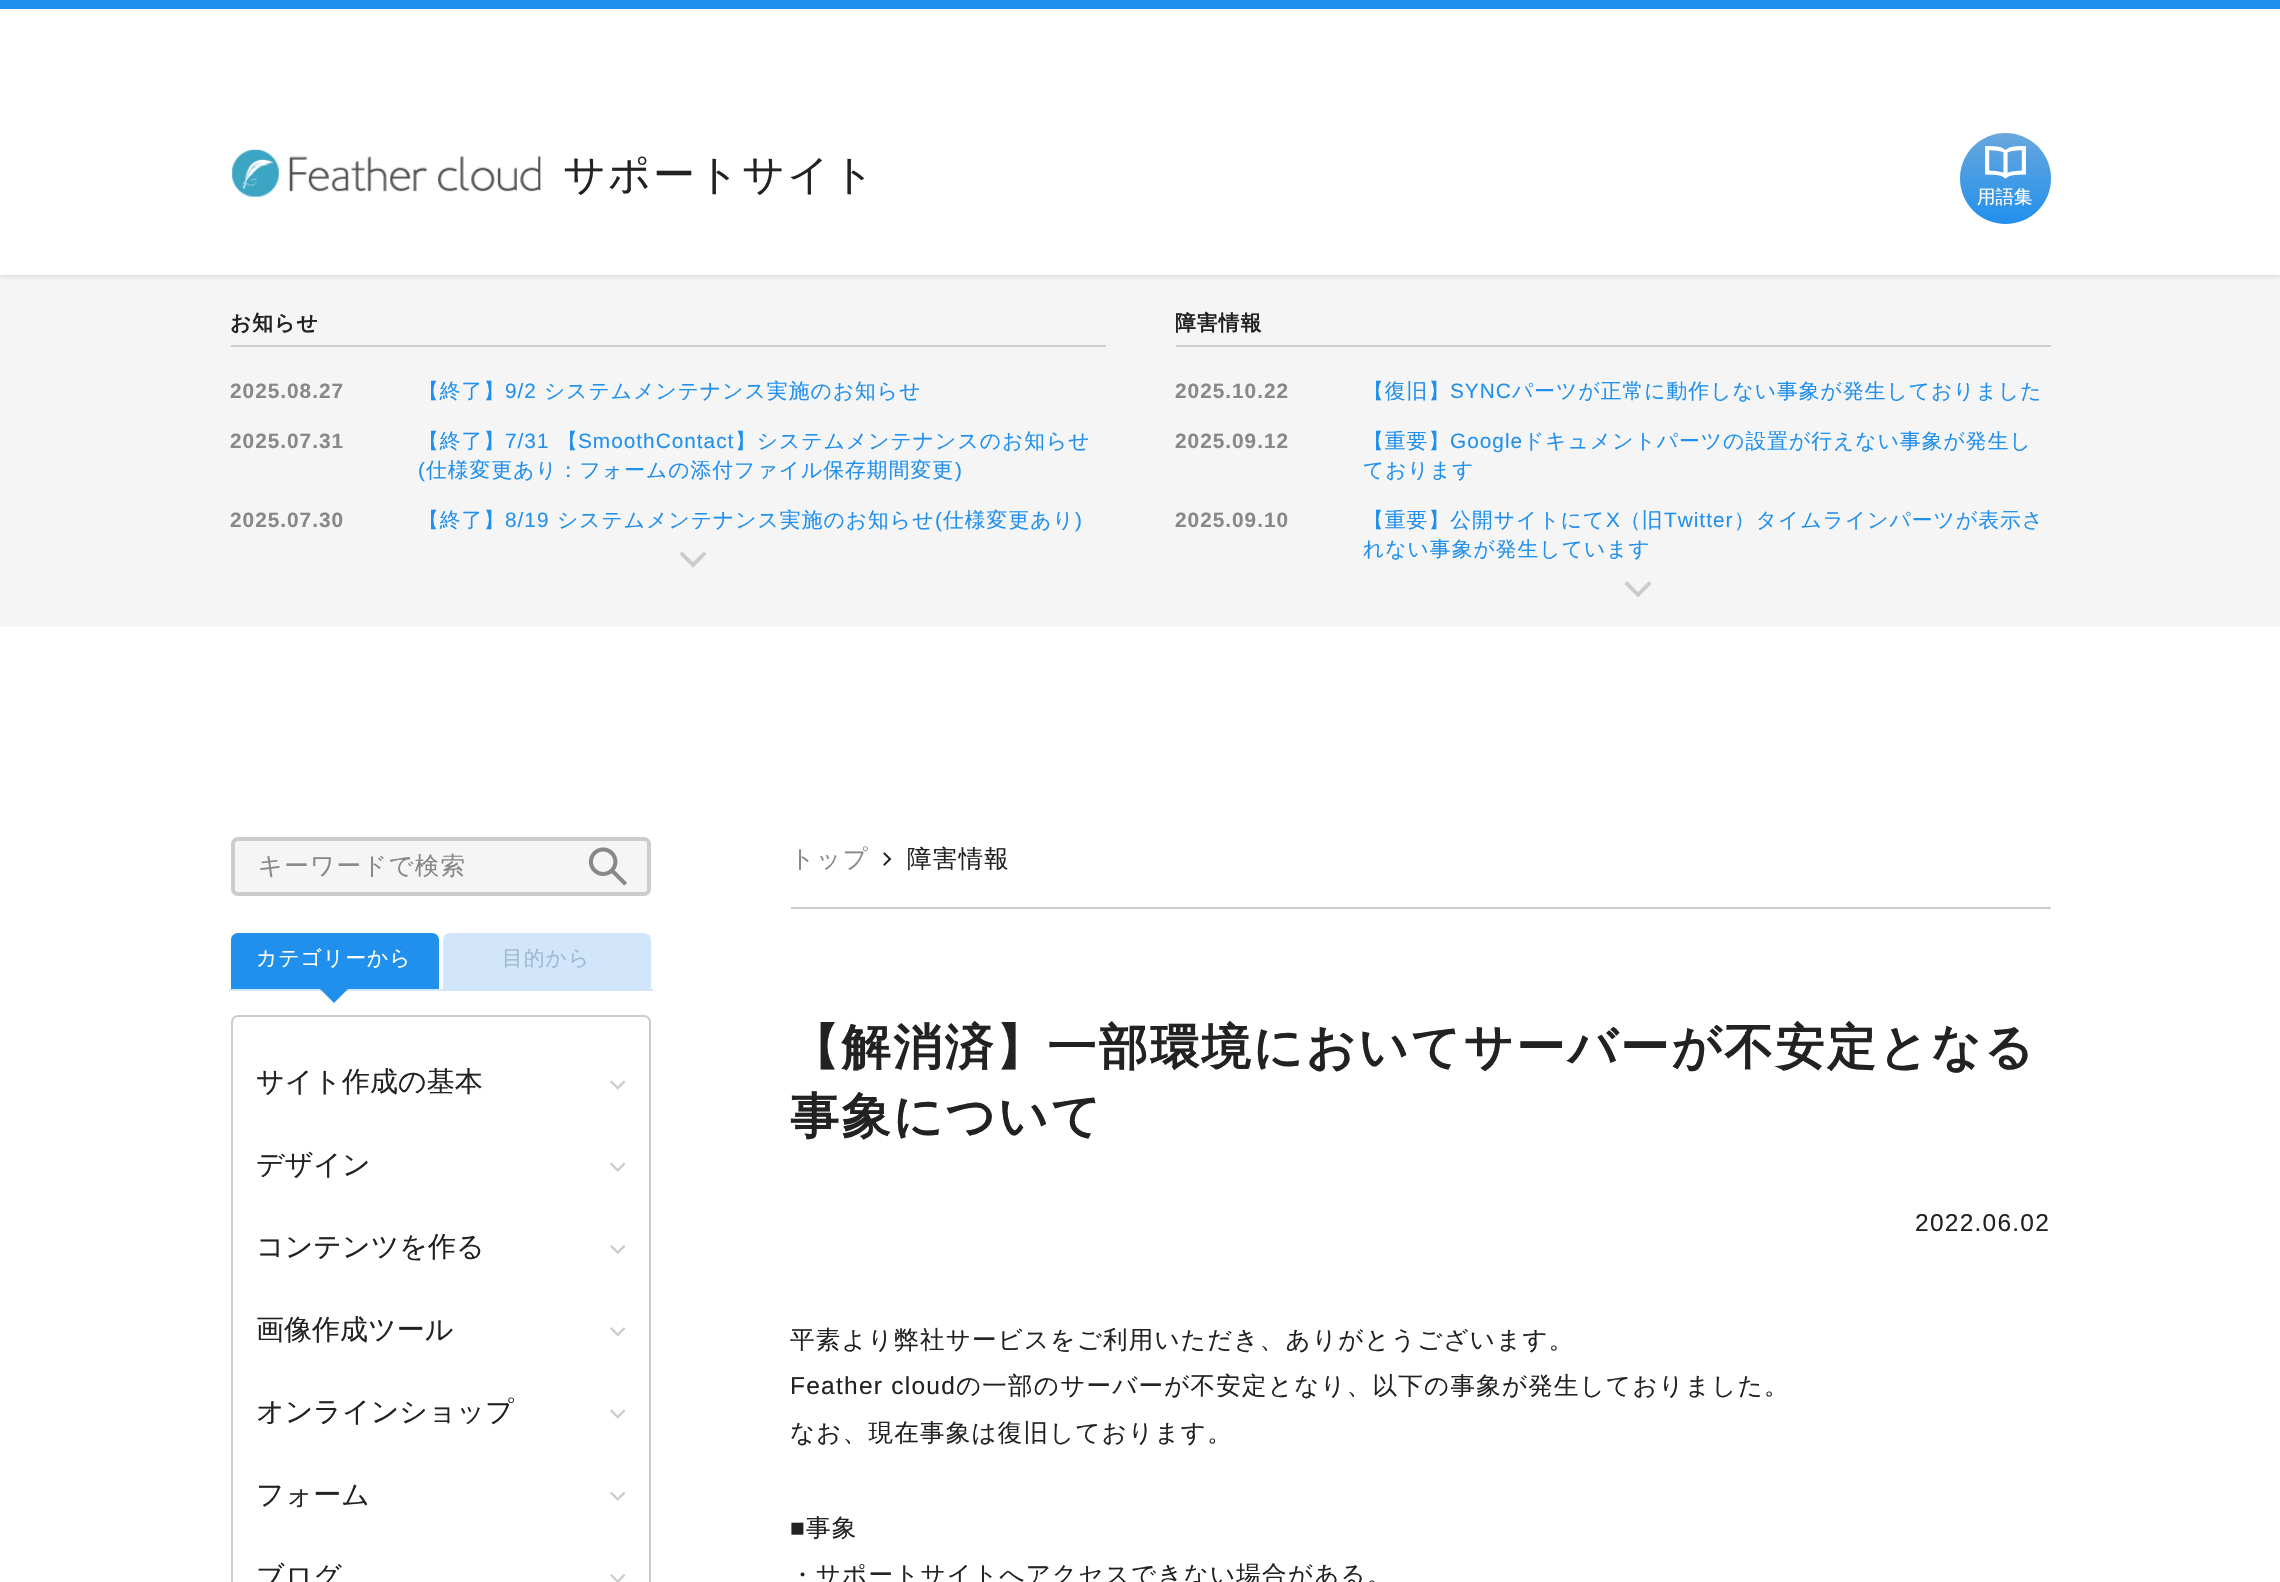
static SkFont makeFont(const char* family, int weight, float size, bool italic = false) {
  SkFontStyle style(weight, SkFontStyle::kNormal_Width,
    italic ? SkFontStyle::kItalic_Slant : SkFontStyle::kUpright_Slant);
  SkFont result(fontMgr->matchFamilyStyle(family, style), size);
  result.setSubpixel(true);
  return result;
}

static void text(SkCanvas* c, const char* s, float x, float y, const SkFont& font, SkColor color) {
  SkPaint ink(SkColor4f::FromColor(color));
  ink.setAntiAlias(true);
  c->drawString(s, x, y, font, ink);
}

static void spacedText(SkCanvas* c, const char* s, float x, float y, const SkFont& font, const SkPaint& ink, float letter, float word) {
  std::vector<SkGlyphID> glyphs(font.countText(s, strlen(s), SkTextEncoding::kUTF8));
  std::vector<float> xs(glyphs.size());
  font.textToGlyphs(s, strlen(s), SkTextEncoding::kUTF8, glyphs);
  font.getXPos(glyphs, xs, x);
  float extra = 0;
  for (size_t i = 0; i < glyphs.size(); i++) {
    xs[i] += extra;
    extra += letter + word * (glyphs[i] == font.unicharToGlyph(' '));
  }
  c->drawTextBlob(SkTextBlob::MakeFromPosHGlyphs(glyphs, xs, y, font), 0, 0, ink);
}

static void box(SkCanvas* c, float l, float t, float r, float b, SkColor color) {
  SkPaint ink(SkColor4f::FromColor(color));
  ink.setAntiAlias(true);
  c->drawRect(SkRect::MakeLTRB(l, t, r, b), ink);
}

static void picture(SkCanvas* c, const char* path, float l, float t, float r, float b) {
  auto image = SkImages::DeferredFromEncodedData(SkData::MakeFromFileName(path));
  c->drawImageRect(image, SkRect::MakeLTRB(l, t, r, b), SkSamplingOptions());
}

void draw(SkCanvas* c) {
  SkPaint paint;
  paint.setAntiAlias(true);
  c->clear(0xffffffff);
  box(c, 0, 275, 2280, 627, 0xfff5f5f5);
  paint.setColor(0x1a000000);
  paint.setMaskFilter(SkMaskFilter::MakeBlur(kNormal_SkBlurStyle, 2));
  c->drawRect(SkRect::MakeLTRB(0, 2, 2280, 277), paint);
  paint.setMaskFilter(nullptr);
  box(c, 0, 9, 2280, 275, 0xffffffff);
  box(c, 0, 0, 2280, 9, 0xff2190ed);
  picture(c, "img_01.png", 231, 149, 541, 197);
  SkFont face1 = makeFont("WenQuanYi Zen Hei", 500, 42);
  paint.setColor(0xff222222);
  spacedText(c, "サポートサイト", 563, 189, face1, paint, 2, 0);
  {
    const SkColor colors[] = {0xff68a7dc, 0xff2190ed};
    const float stops[] = {0, 1};
    const SkPoint ends[] = {{2006, 133}, {2006, 224}};
    paint.setShader(SkGradientShader::MakeLinear(ends, colors, stops, 2, SkTileMode::kClamp));
    paint.setAlpha(255);
  }
  c->drawCircle(2005.5f, 178.5f, 45.5f, paint);
  picture(c, "img_02.png", 1985, 146, 2026, 179);
  SkFont face2 = makeFont("WenQuanYi Zen Hei", 500, 18.5f);
  text(c, "用語集", 1977, 203, face2, 0xffffffff);
  box(c, 231, 345, 1106, 347, 0xffcccccc);
  SkFont face3 = makeFont("WenQuanYi Zen Hei", 700, 20.8f);
  paint.setShader(nullptr);
  paint.setColor(0xff222222);
  spacedText(c, "お知らせ", 230, 330, face3, paint, 1, 0);
  SkFont face4 = makeFont("Liberation Sans", 700, 20.8f);
  paint.setColor(0xff888888);
  spacedText(c, "2025.08.27", 230, 398, face4, paint, 1, 0);
  SkFont face5 = makeFont("WenQuanYi Zen Hei", 500, 20.8f);
  paint.setColor(0xff2190ed);
  spacedText(c, "【終了】", 418, 398, face5, paint, 1, 0);
  SkFont face6 = makeFont("Liberation Sans", 400, 20.8f);
  spacedText(c, "9/2", 505, 398, face6, paint, 1, 0);
  spacedText(c, "システムメンテナンス実施のお知らせ", 544, 398, face5, paint, 1, 0);
  paint.setColor(0xff888888);
  spacedText(c, "2025.07.31", 230, 448, face4, paint, 1, 0);
  paint.setColor(0xff2190ed);
  spacedText(c, "【終了】", 418, 448, face5, paint, 1, 0);
  spacedText(c, "7/31", 505, 448, face6, paint, 1, 0);
  spacedText(c, "【", 557, 448, face5, paint, 1, 0);
  spacedText(c, "SmoothContact", 578, 448, face6, paint, 1, 0);
  spacedText(c, "】システムメンテナンスのお知らせ", 735, 448, face5, paint, 1, 0);
  spacedText(c, "(", 418, 477, face6, paint, 1, 0);
  spacedText(c, "仕様変更あり：フォームの添付ファイル保存期間変更", 426, 477, face5, paint, 1, 0);
  spacedText(c, ")", 955, 477, face6, paint, 1, 0);
  paint.setColor(0xff888888);
  spacedText(c, "2025.07.30", 230, 527, face4, paint, 1, 0);
  paint.setColor(0xff2190ed);
  spacedText(c, "【終了】", 418, 527, face5, paint, 1, 0);
  spacedText(c, "8/19", 505, 527, face6, paint, 1, 0);
  spacedText(c, "システムメンテナンス実施のお知らせ", 557, 527, face5, paint, 1, 0);
  spacedText(c, "(", 935, 527, face6, paint, 1, 0);
  spacedText(c, "仕様変更あり", 943, 527, face5, paint, 1, 0);
  spacedText(c, ")", 1075, 527, face6, paint, 1, 0);
  paint.setColor(0xffcccccc);
  c->drawPath(SkPathBuilder().moveTo(693, 568).lineTo(679.5f, 554).lineTo(682, 551.5f).lineTo(693, 562).lineTo(704, 551.5f).lineTo(706.5f, 554).close().detach(), paint);
  box(c, 1176, 345, 2051, 347, 0xffcccccc);
  paint.setColor(0xff222222);
  spacedText(c, "障害情報", 1175, 330, face3, paint, 1, 0);
  paint.setColor(0xff888888);
  spacedText(c, "2025.10.22", 1175, 398, face4, paint, 1, 0);
  paint.setColor(0xff2190ed);
  spacedText(c, "【復旧】", 1363, 398, face5, paint, 1, 0);
  spacedText(c, "SYNC", 1450, 398, face6, paint, 1, 0);
  spacedText(c, "パーツが正常に動作しない事象が発生しておりました", 1512, 398, face5, paint, 1, 0);
  paint.setColor(0xff888888);
  spacedText(c, "2025.09.12", 1175, 448, face4, paint, 1, 0);
  paint.setColor(0xff2190ed);
  spacedText(c, "【重要】", 1363, 448, face5, paint, 1, 0);
  spacedText(c, "Google", 1450, 448, face6, paint, 1, 0);
  spacedText(c, "ドキュメントパーツの設置が行えない事象が発生し", 1523, 448, face5, paint, 1, 0);
  spacedText(c, "ております", 1363, 477, face5, paint, 1, 0);
  paint.setColor(0xff888888);
  spacedText(c, "2025.09.10", 1175, 527, face4, paint, 1, 0);
  paint.setColor(0xff2190ed);
  spacedText(c, "【重要】公開サイトにて", 1363, 527, face5, paint, 1, 0);
  spacedText(c, "X", 1606, 527, face6, paint, 1, 0);
  spacedText(c, "（旧", 1620, 527, face5, paint, 1, 0);
  spacedText(c, "Twitter", 1664, 527, face6, paint, 1, 0);
  spacedText(c, "）タイムラインパーツが表示さ", 1734, 527, face5, paint, 1, 0);
  spacedText(c, "れない事象が発生しています", 1363, 556, face5, paint, 1, 0);
  paint.setColor(0xffcccccc);
  c->drawPath(SkPathBuilder().moveTo(1638, 597.5f).lineTo(1624.5f, 584).lineTo(1627, 581).lineTo(1638, 592).lineTo(1649, 581).lineTo(1651.5f, 584).close().detach(), paint);
  paint.setColor(0xfff5f5f5);
  c->drawRoundRect(SkRect::MakeLTRB(233, 839, 649, 894), 5, 5, paint);
  paint.setStyle(SkPaint::kStroke_Style);
  paint.setStrokeWidth(4);
  paint.setColor(0xffcccccc);
  c->drawRoundRect(SkRect::MakeLTRB(233, 839, 649, 894), 5, 5, paint);
  SkFont face7 = makeFont("WenQuanYi Zen Hei", 500, 24.5f);
  paint.setStyle(SkPaint::kFill_Style);
  paint.setColor(0xff888888);
  spacedText(c, "キーワードで検索", 258, 874, face7, paint, 1.25f, 0);
  picture(c, "img_03.png", 588, 847, 627, 886);
  box(c, 229, 989, 653, 991, 0xffd2e6fb);
  paint.setColor(0xff2190ed);
  c->drawPath(SkPathBuilder().moveTo(238, 933).lineTo(432, 933).cubicTo(436, 933, 439, 936, 439, 940).lineTo(439, 989).lineTo(231, 989).lineTo(231, 940).cubicTo(231, 936, 234, 933, 238, 933).close().detach(), paint);
  paint.setColor(0xffffffff);
  spacedText(c, "カテゴリーから", 256, 965, face5, paint, 1, 0);
  paint.setColor(0xff2190ed);
  c->drawPath(SkPathBuilder().moveTo(320, 989).lineTo(348, 989).lineTo(334, 1003).close().detach(), paint);
  paint.setColor(0xffd2e6fb);
  c->drawPath(SkPathBuilder().moveTo(450, 933).lineTo(644, 933).cubicTo(648, 933, 651, 936, 651, 940).lineTo(651, 989).lineTo(443, 989).lineTo(443, 940).cubicTo(443, 936, 446, 933, 450, 933).close().detach(), paint);
  paint.setColor(0xffa0b8cd);
  spacedText(c, "目的から", 502, 965, face5, paint, 1, 0);
  paint.setStyle(SkPaint::kStroke_Style);
  paint.setStrokeWidth(2);
  paint.setColor(0xffcccccc);
  c->drawRoundRect(SkRect::MakeLTRB(232, 1016, 650, 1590), 6, 6, paint);
  SkFont face8 = makeFont("WenQuanYi Zen Hei", 500, 28);
  text(c, "サイト作成の基本", 256, 1091, face8, 0xff222222);
  picture(c, "img_04.png", 610, 1080, 626, 1090);
  text(c, "デザイン", 256, 1174, face8, 0xff222222);
  picture(c, "img_05.png", 610, 1162, 626, 1172);
  text(c, "コンテンツを作る", 256, 1256, face8, 0xff222222);
  picture(c, "img_06.png", 610, 1245, 626, 1254);
  text(c, "画像作成ツール", 256, 1339, face8, 0xff222222);
  picture(c, "img_07.png", 610, 1327, 626, 1337);
  text(c, "オンラインショップ", 256, 1421, face8, 0xff222222);
  picture(c, "img_04.png", 610, 1409, 626, 1419);
  text(c, "フォーム", 256, 1504, face8, 0xff222222);
  picture(c, "img_05.png", 610, 1491, 626, 1501);
  text(c, "ブログ", 256, 1586, face8, 0xff222222);
  picture(c, "img_08.png", 610, 1574, 626, 1582);
  box(c, 791, 907, 2051, 909, 0xffcccccc);
  paint.setStyle(SkPaint::kFill_Style);
  paint.setColor(0xff888888);
  spacedText(c, "トップ", 790, 867, face7, paint, 1.25f, 0);
  picture(c, "img_09.png", 883, 852, 892, 866);
  paint.setColor(0xff222222);
  spacedText(c, "障害情報", 907, 867, face7, paint, 1.25f, 0);
  SkFont face9 = makeFont("WenQuanYi Zen Hei", 700, 49);
  spacedText(c, "【解消済】一部環境においてサーバーが不安定となる", 790, 1064, face9, paint, 2.45f, 0);
  spacedText(c, "事象について", 790, 1133, face9, paint, 2.45f, 0);
  SkFont face10 = makeFont("Liberation Sans", 400, 24.5f);
  spacedText(c, "2022.06.02", 1915, 1231, face10, paint, 1.25f, 0);
  spacedText(c, "平素より弊社サービスをご利用いただき、ありがとうございます。", 790, 1348, face7, paint, 1.25f, 0);
  spacedText(c, "Feather cloud", 790, 1394, face10, paint, 1.25f, 0);
  spacedText(c, "の一部のサーバーが不安定となり、以下の事象が発生しておりました。", 956, 1394, face7, paint, 1.25f, 0);
  spacedText(c, "なお、現在事象は復旧しております。", 790, 1441, face7, paint, 1.25f, 0);
  spacedText(c, "■", 790, 1536, face10, paint, 1.25f, 0);
  spacedText(c, "事象", 806, 1536, face7, paint, 1.25f, 0);
  spacedText(c, "・サポートサイトへアクセスできない場合がある。", 790, 1583, face7, paint, 1.25f, 0);
}
